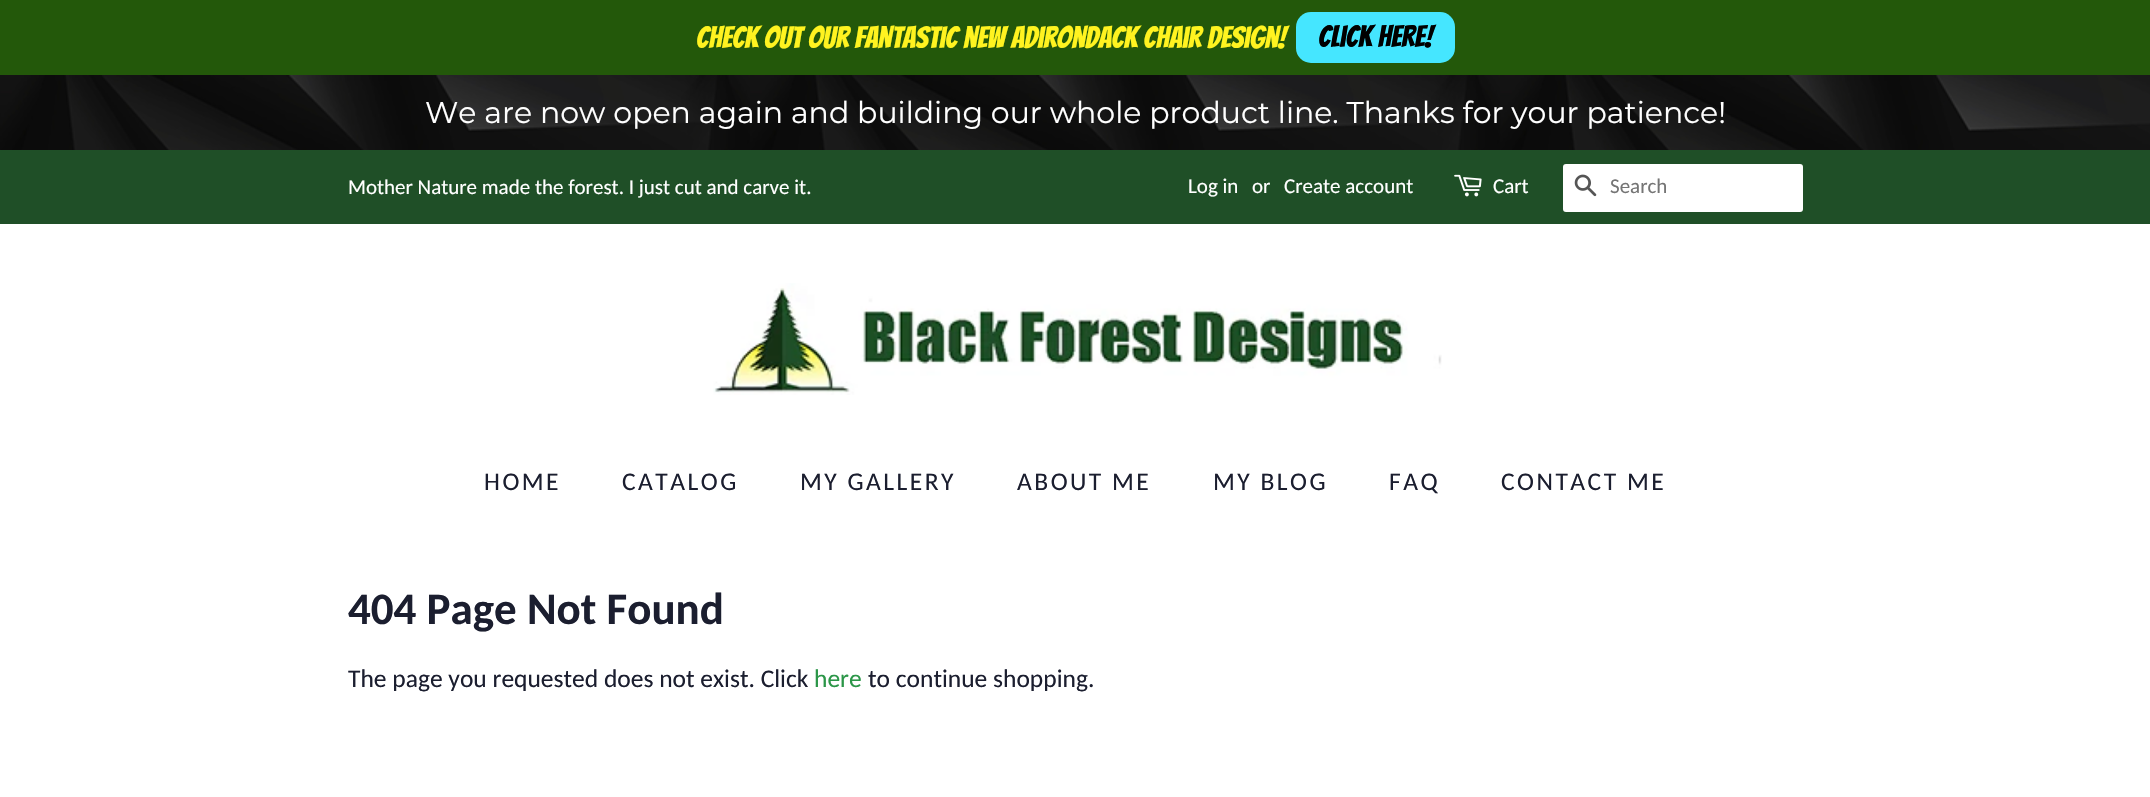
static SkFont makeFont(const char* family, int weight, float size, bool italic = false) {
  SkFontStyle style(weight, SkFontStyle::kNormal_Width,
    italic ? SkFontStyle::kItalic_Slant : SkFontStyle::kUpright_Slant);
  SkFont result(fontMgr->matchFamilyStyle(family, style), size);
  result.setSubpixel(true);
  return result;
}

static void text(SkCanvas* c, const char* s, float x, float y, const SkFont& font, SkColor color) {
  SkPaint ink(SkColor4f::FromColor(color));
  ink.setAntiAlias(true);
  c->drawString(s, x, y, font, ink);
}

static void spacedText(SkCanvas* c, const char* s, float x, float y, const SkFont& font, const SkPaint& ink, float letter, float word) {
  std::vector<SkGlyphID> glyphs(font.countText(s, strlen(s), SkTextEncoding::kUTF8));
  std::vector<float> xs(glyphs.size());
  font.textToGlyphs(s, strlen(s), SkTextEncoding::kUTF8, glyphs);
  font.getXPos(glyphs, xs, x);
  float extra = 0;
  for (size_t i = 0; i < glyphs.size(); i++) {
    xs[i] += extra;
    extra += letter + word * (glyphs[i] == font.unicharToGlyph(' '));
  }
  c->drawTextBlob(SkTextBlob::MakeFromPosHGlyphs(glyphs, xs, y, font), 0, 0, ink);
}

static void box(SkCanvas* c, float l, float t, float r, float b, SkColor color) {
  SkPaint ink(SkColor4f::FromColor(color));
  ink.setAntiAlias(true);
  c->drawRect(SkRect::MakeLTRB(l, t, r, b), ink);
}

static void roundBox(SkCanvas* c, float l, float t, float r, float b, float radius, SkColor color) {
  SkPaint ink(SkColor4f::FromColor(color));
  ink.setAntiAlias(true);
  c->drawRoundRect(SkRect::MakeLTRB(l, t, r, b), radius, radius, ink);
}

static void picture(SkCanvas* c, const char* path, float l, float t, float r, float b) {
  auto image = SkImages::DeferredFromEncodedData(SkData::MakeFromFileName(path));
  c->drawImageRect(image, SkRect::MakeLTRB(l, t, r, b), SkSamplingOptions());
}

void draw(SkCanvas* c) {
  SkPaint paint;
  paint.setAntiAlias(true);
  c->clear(0xffffffff);
  box(c, 0, 0, 2150, 75, 0xff23580a);
  SkFont face1 = makeFont("Bangers", 400, 30);
  text(c, "Check out our fantastic new Adirondack Chair Design!", 696, 48, face1, 0xfffff320);
  roundBox(c, 1296, 12, 1455, 63, 15, 0xff45e6ff);
  text(c, "Click Here!", 1318, 47, face1, 0xff000000);
  picture(c, "img_01.png", 0, 75, 2150, 150);
  SkFont face2 = makeFont("Montserrat", 400, 30);
  text(c, "We are now open again and building our whole product line. Thanks for your patience!", 425, 123, face2, 0xffffffff);
  box(c, 0, 150, 2150, 224, 0xff1f4f27);
  SkFont face3 = makeFont("Carlito", 400, 21);
  text(c, "Mother Nature made the forest. I just cut and carve it.", 348, 194, face3, 0xffffffff);
  text(c, "Log in", 1188, 193, face3, 0xffffffff);
  text(c, "or", 1252, 193, face3, 0xffffffff);
  text(c, "Create account", 1284, 193, face3, 0xffffffff);
  picture(c, "img_02.png", 1454, 174, 1482, 197);
  text(c, "Cart", 1493, 193, face3, 0xffffffff);
  roundBox(c, 1563, 164, 1803, 212, 3, 0xffffffff);
  picture(c, "img_03.png", 1574, 174, 1597, 197);
  text(c, "Search", 1610, 193, face3, 0xff757575);
  picture(c, "img_04.png", 713, 283, 1442, 395);
  SkFont face4 = makeFont("Carlito", 400, 25.5f);
  paint.setColor(0xff1b1e2f);
  spacedText(c, "HOME", 484, 490, face4, paint, 2.5f, 0);
  spacedText(c, "CATALOG", 622, 490, face4, paint, 2.5f, 0);
  spacedText(c, "MY GALLERY", 800, 490, face4, paint, 2.5f, 0);
  spacedText(c, "ABOUT ME", 1017, 490, face4, paint, 2.5f, 0);
  spacedText(c, "MY BLOG", 1213, 490, face4, paint, 2.5f, 0);
  spacedText(c, "FAQ", 1389, 490, face4, paint, 2.5f, 0);
  spacedText(c, "CONTACT ME", 1501, 490, face4, paint, 2.5f, 0);
  SkFont face5 = makeFont("Carlito", 700, 45);
  text(c, "404 Page Not Found", 348, 624, face5, 0xff1b1e2f);
  text(c, "The page you requested does not exist. Click", 348, 687, face4, 0xff1b1e2f);
  text(c, "here", 814, 687, face4, 0xff2b9648);
  text(c, "to continue shopping.", 868, 687, face4, 0xff1b1e2f);
}
